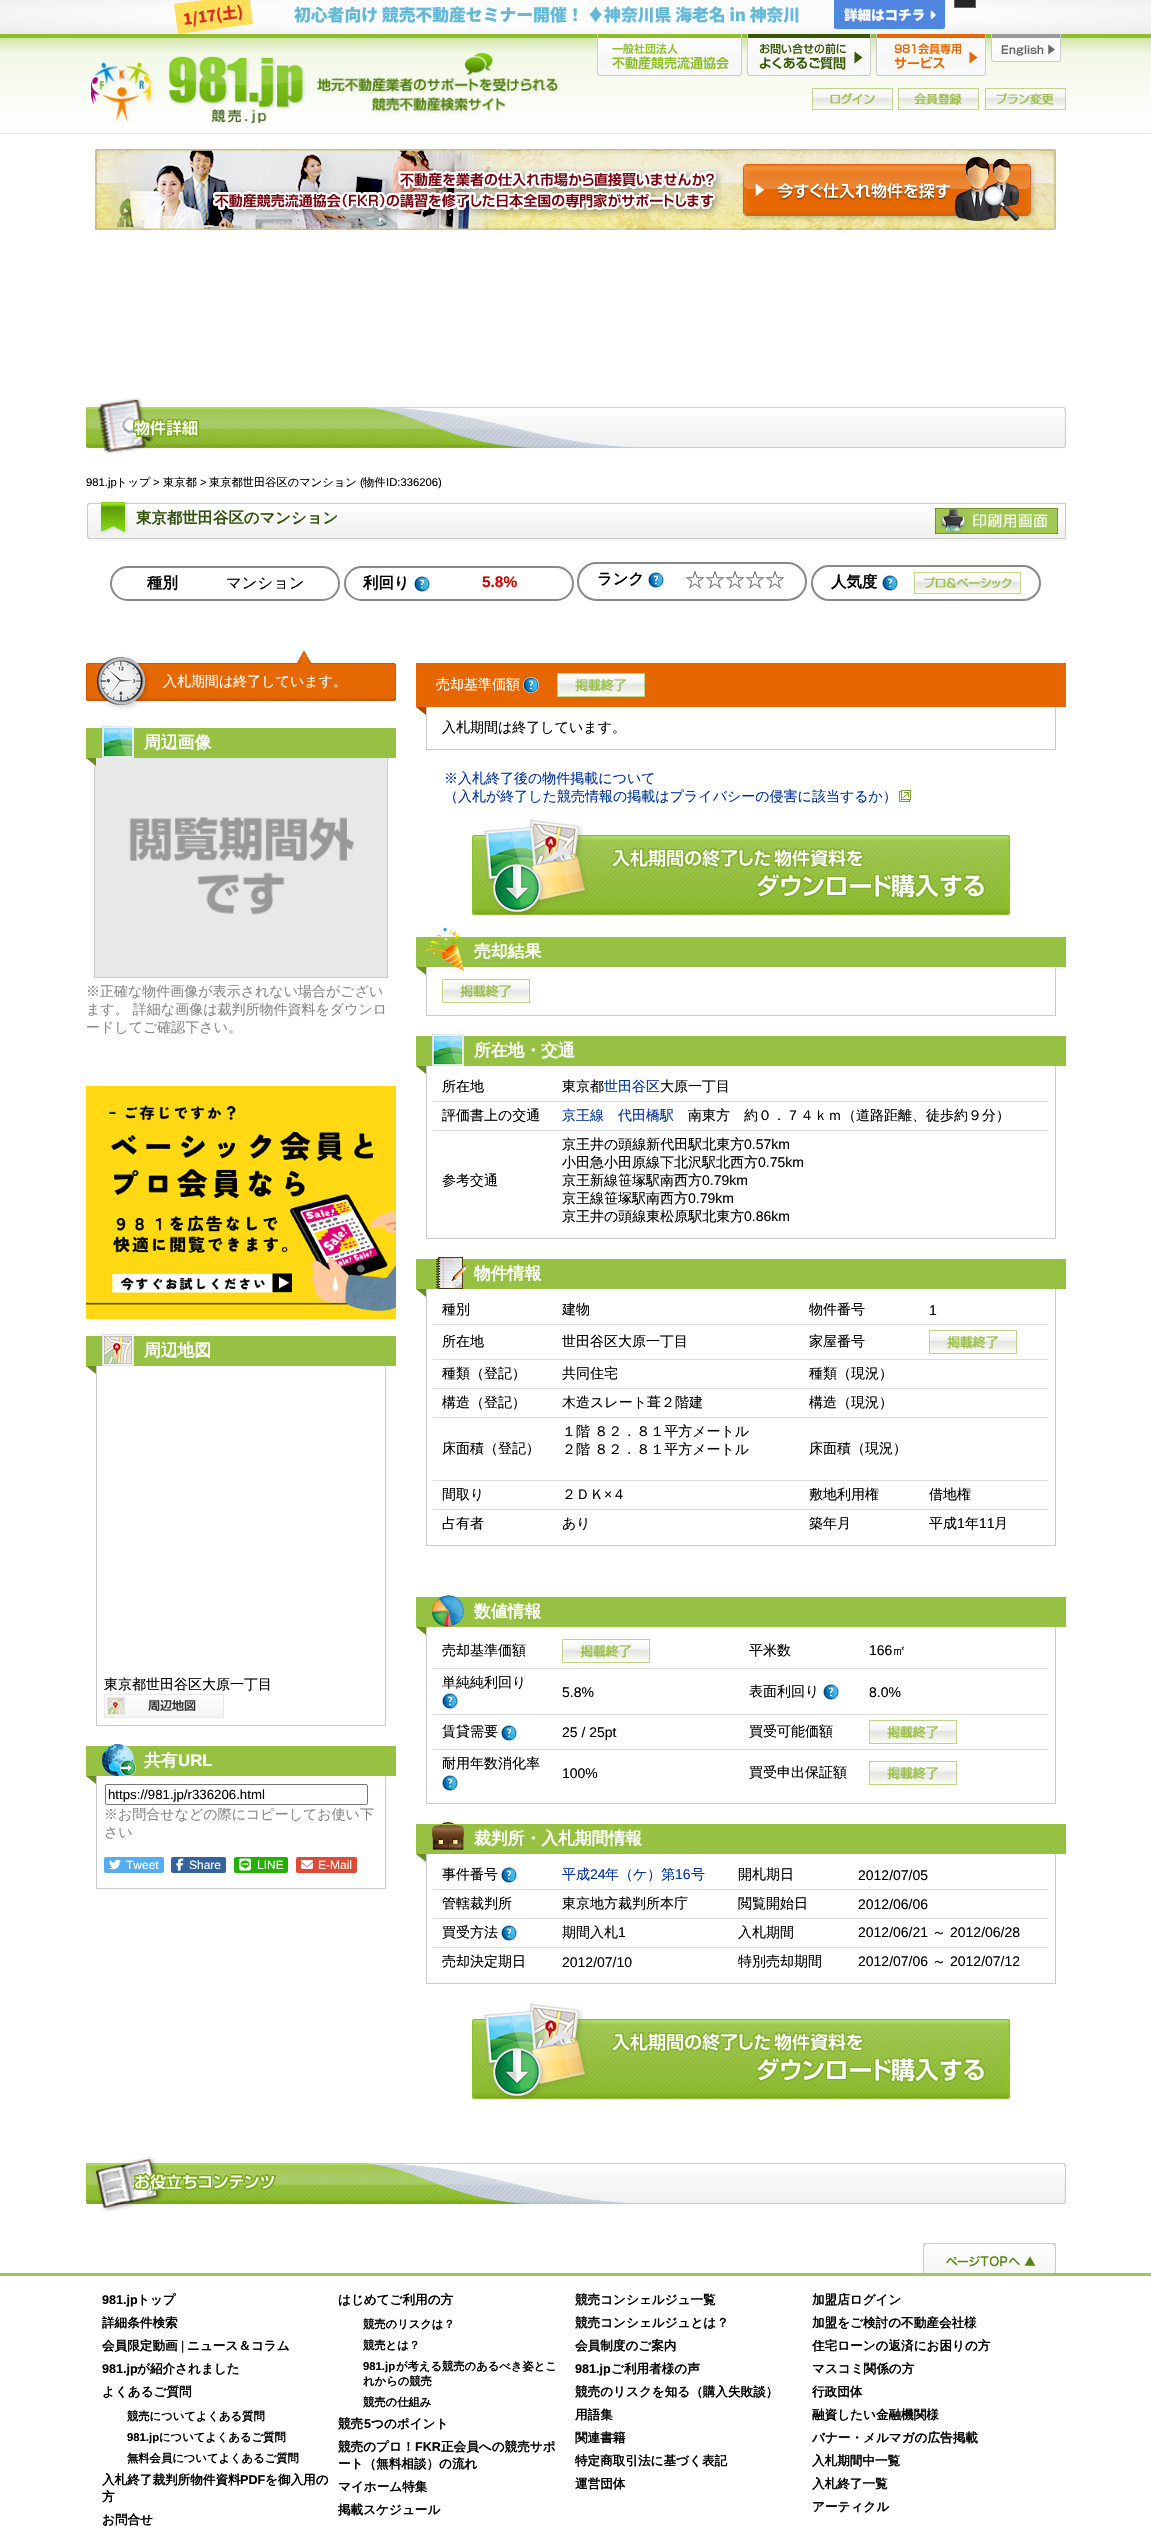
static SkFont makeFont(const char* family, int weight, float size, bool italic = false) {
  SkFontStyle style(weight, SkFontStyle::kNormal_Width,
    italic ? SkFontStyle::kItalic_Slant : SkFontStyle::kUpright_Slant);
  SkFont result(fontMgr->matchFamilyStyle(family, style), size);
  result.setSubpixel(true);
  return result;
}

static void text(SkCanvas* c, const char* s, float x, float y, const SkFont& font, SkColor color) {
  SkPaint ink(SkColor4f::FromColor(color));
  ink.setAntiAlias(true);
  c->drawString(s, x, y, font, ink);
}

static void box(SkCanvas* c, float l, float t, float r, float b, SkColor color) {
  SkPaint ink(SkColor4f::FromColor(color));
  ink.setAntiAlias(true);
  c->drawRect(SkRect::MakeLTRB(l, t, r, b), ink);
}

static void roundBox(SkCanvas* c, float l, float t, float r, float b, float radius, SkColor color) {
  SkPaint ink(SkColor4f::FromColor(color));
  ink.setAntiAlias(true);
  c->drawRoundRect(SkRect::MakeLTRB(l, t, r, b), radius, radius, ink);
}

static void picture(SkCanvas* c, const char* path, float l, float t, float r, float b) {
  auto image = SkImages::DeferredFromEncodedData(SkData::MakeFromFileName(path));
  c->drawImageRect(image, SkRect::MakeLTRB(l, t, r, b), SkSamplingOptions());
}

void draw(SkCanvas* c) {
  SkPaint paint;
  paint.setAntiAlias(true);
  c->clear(0xffffffff);
  {
    const SkColor colors[] = {0xfffcfcfc, 0xffebebeb};
    const float stops[] = {0.5f, 1};
    SkMatrix m = SkMatrix::Translate(576, 14).preScale(814, 28);
    paint.setShader(SkGradientShader::MakeRadial({0, 0}, 1, colors, stops, 2, SkTileMode::kClamp, 0, &m));
    paint.setAlpha(255);
  }
  c->drawRect(SkRect::MakeLTRB(0, 0, 1151, 34), paint);
  {
    const SkColor colors[] = {0xff262626, 0xff232323};
    const float stops[] = {0.5f, 1};
    SkMatrix m = SkMatrix::Translate(576, 14).preScale(814, 28);
    paint.setShader(SkGradientShader::MakeRadial({0, 0}, 1, colors, stops, 2, SkTileMode::kClamp, 0, &m));
    paint.setAlpha(255);
  }
  c->drawRect(SkRect::MakeLTRB(954, 0, 976, 7), paint);
  paint.setShader(nullptr);
  paint.setColor(0xffffde59);
  c->drawPath(SkPathBuilder().moveTo(174, 4).lineTo(249, -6).lineTo(253, 24).lineTo(178, 34).close().detach(), paint);
  SkFont face1 = makeFont("Noto Sans JP", 900, 15);
  c->save();
  c->rotate(-8, 184, 25);
  text(c, "1/17(土)", 184, 25, face1, 0xffdd2c26);
  c->restore();
  SkFont face2 = makeFont("Noto Sans JP", 900, 16.8f);
  text(c, "初心者向け 競売不動産セミナー開催！ ♦神奈川県 海老名 in 神奈川", 294, 21, face2, 0xff63b9d7);
  roundBox(c, 834, -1, 945, 29, 2, 0xff5086e0);
  SkFont face3 = makeFont("Noto Sans JP", 900, 13.5f);
  text(c, "詳細はコチラ", 844, 20, face3, 0xffffffff);
  picture(c, "img_01.png", 930, 10, 936, 20);
  paint.setStyle(SkPaint::kStroke_Style);
  paint.setStrokeWidth(1);
  paint.setColor(0xff666666);
  c->drawRect(SkRect::MakeLTRB(954.5f, -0.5f, 975.5f, 7.5f), paint);
  picture(c, "img_02.png", 0, 34, 1151, 134);
  picture(c, "img_03.png", 91, 52, 559, 124);
  picture(c, "img_04.png", 598, 38, 742, 76);
  paint.setStyle(SkPaint::kFill_Style);
  paint.setColor(0xffcccccc);
  c->drawPath(SkPathBuilder(SkPathFillType::kEvenOdd).moveTo(597, 34).lineTo(742, 34).lineTo(742, 73).cubicTo(742, 75, 741, 76, 739, 76).lineTo(600, 76).cubicTo(598, 76, 597, 75, 597, 73).close().moveTo(598, 34).lineTo(741, 34).lineTo(741, 73).cubicTo(741, 74, 740, 75, 739, 75).lineTo(600, 75).cubicTo(599, 75, 598, 74, 598, 73).close().detach(), paint);
  picture(c, "img_05.png", 747, 34, 871, 76);
  c->drawPath(SkPathBuilder(SkPathFillType::kEvenOdd).moveTo(747, 34).lineTo(871, 34).lineTo(871, 73).cubicTo(871, 75, 870, 76, 868, 76).lineTo(750, 76).cubicTo(748, 76, 747, 75, 747, 73).close().moveTo(748, 34).lineTo(870, 34).lineTo(870, 73).cubicTo(870, 74, 869, 75, 868, 75).lineTo(750, 75).cubicTo(749, 75, 748, 74, 748, 73).close().detach(), paint);
  picture(c, "img_06.png", 876, 34, 986, 76);
  c->drawPath(SkPathBuilder(SkPathFillType::kEvenOdd).moveTo(876, 34).lineTo(986, 34).lineTo(986, 73).cubicTo(986, 75, 985, 76, 983, 76).lineTo(879, 76).cubicTo(877, 76, 876, 75, 876, 73).close().moveTo(877, 34).lineTo(985, 34).lineTo(985, 73).cubicTo(985, 74, 984, 75, 983, 75).lineTo(879, 75).cubicTo(878, 75, 877, 74, 877, 73).close().detach(), paint);
  picture(c, "img_07.png", 992, 34, 1061, 62);
  c->drawPath(SkPathBuilder(SkPathFillType::kEvenOdd).moveTo(991, 34).lineTo(1061, 34).lineTo(1061, 59).cubicTo(1061, 61, 1060, 62, 1058, 62).lineTo(994, 62).cubicTo(992, 62, 991, 61, 991, 59).close().moveTo(992, 34).lineTo(1060, 34).lineTo(1060, 59).cubicTo(1060, 60, 1059, 61, 1058, 61).lineTo(994, 61).cubicTo(993, 61, 992, 60, 992, 59).close().detach(), paint);
  picture(c, "img_08.png", 812, 88, 893, 110);
  picture(c, "img_09.png", 898, 88, 979, 110);
  picture(c, "img_10.png", 985, 88, 1066, 110);
  picture(c, "img_11.png", 95, 149, 1056, 230);
  picture(c, "img_12.png", 86, 398, 1066, 454);
  SkFont face4 = makeFont("Liberation Sans", 400, 11.25f);
  text(c, "981.jp", 86, 486, face4, 0xff000000);
  SkFont face5 = makeFont("WenQuanYi Zen Hei", 500, 11.25f);
  text(c, "トップ", 116, 486, face5, 0xff000000);
  text(c, ">", 153, 486, face4, 0xff000000);
  text(c, "東京都", 163, 486, face5, 0xff000000);
  text(c, ">", 200, 486, face4, 0xff000000);
  text(c, "東京都世田谷区のマンション", 209, 486, face5, 0xff000000);
  text(c, "(", 360, 486, face4, 0xff000000);
  text(c, "物件", 363, 486, face5, 0xff000000);
  text(c, "ID:336206)", 386, 486, face4, 0xff000000);
  picture(c, "img_13.png", 87, 501, 1066, 541);
  SkFont face6 = makeFont("WenQuanYi Zen Hei", 700, 15.4f);
  text(c, "東京都世田谷区のマンション", 136, 523, face6, 0xff32520b);
  box(c, 1065, 504, 1066, 539, 0xffcccccc);
  picture(c, "img_14.png", 935, 508, 1058, 534);
  paint.setStyle(SkPaint::kStroke_Style);
  paint.setStrokeWidth(2);
  paint.setColor(0xff888888);
  c->drawRoundRect(SkRect::MakeLTRB(111, 567, 339, 600), 16.5f, 16.5f, paint);
  text(c, "種別", 147, 588, face6, 0xff000000);
  SkFont face7 = makeFont("WenQuanYi Zen Hei", 500, 15.4f);
  text(c, "マンション", 226, 588, face7, 0xff000000);
  c->drawRoundRect(SkRect::MakeLTRB(345, 567, 573, 600), 16.5f, 16.5f, paint);
  text(c, "利回り", 363, 588, face6, 0xff000000);
  picture(c, "img_15.png", 414, 576, 430, 592);
  SkFont face8 = makeFont("Liberation Sans", 700, 15.4f);
  text(c, "5.8%", 482, 587, face8, 0xffcc0000);
  c->drawRoundRect(SkRect::MakeLTRB(578, 563, 806, 600), 18.5f, 18.5f, paint);
  text(c, "ランク", 597, 584, face6, 0xff000000);
  picture(c, "img_15.png", 648, 572, 664, 588);
  picture(c, "img_16.png", 685, 571, 784, 589);
  c->drawRoundRect(SkRect::MakeLTRB(812, 566, 1040, 600), 17, 17, paint);
  text(c, "人気度", 831, 587, face6, 0xff000000);
  picture(c, "img_15.png", 882, 575, 898, 591);
  picture(c, "img_17.png", 914, 572, 1021, 594);
  picture(c, "img_18.png", 86, 651, 396, 710);
  SkFont face9 = makeFont("WenQuanYi Zen Hei", 500, 14);
  text(c, "入札期間は終了しています。", 163, 686, face9, 0xffffffff);
  box(c, 86, 728, 396, 758, 0xff97c143);
  picture(c, "img_19.png", 102, 726, 134, 758);
  SkFont face10 = makeFont("WenQuanYi Zen Hei", 700, 16.8f);
  text(c, "周辺画像", 144, 748, face10, 0xffffffff);
  box(c, 95, 758, 387, 977, 0xffe8e8e8);
  box(c, 387, 758, 388, 978, 0xffcccccc);
  box(c, 94, 977, 388, 978, 0xffcccccc);
  box(c, 94, 758, 95, 978, 0xffcccccc);
  paint.setStyle(SkPaint::kFill_Style);
  paint.setColor(0xff6a8d24);
  c->drawPath(SkPathBuilder().moveTo(96, 758).lineTo(96, 766).lineTo(86, 758).close().detach(), paint);
  picture(c, "img_20.png", 129, 817, 355, 915);
  text(c, "※正確な物件画像が表示されない場合がござい", 86, 996, face9, 0xff888888);
  text(c, "ます。 詳細な画像は裁判所物件資料をダウンロ", 86, 1014, face9, 0xff888888);
  text(c, "ードしてご確認下さい。", 86, 1032, face9, 0xff888888);
  picture(c, "img_21.png", 86, 1086, 396, 1319);
  box(c, 86, 1336, 396, 1366, 0xff97c143);
  picture(c, "img_22.png", 102, 1334, 134, 1366);
  text(c, "周辺地図", 144, 1356, face10, 0xffffffff);
  c->drawPath(SkPathBuilder().moveTo(96, 1366).lineTo(96, 1374).lineTo(86, 1366).close().detach(), paint);
  box(c, 385, 1366, 386, 1726, 0xffcccccc);
  box(c, 96, 1725, 386, 1726, 0xffcccccc);
  box(c, 96, 1366, 97, 1726, 0xffcccccc);
  text(c, "東京都世田谷区大原一丁目", 104, 1689, face9, 0xff000000);
  picture(c, "img_23.png", 104, 1694, 224, 1718);
  box(c, 86, 1746, 396, 1776, 0xff97c143);
  picture(c, "img_24.png", 102, 1744, 136, 1776);
  text(c, "共有", 144, 1766, face10, 0xffffffff);
  SkFont face11 = makeFont("Liberation Sans", 700, 16.8f);
  text(c, "URL", 178, 1766, face11, 0xffffffff);
  c->drawPath(SkPathBuilder().moveTo(96, 1776).lineTo(96, 1784).lineTo(86, 1776).close().detach(), paint);
  box(c, 385, 1776, 386, 1889, 0xffcccccc);
  box(c, 96, 1888, 386, 1889, 0xffcccccc);
  box(c, 96, 1776, 97, 1889, 0xffcccccc);
  paint.setStyle(SkPaint::kStroke_Style);
  paint.setStrokeWidth(1);
  paint.setColor(0xff767676);
  c->drawRoundRect(SkRect::MakeLTRB(105.5f, 1784.5f, 367.5f, 1804.5f), 1.5f, 1.5f, paint);
  SkFont face12 = makeFont("Liberation Sans", 400, 13.25f);
  text(c, "https://981.jp/r336206.html", 108, 1799, face12, 0xff000000);
  text(c, "※お問合せなどの際にコピーしてお使い下", 104, 1819, face9, 0xff888888);
  text(c, "さい", 104, 1837, face9, 0xff888888);
  roundBox(c, 104, 1857, 164, 1873, 2, 0xff55acee);
  picture(c, "img_25.png", 109, 1859, 121, 1870);
  SkFont face13 = makeFont("Liberation Sans", 400, 12);
  text(c, "Tweet", 126, 1869, face13, 0xffffffff);
  roundBox(c, 171, 1857, 226, 1873, 2, 0xff35629a);
  picture(c, "img_26.png", 176, 1858, 184, 1871);
  text(c, "Share", 189, 1869, face13, 0xffffffff);
  roundBox(c, 234, 1857, 288, 1873, 2, 0xff25af00);
  picture(c, "img_27.png", 239, 1858, 251, 1871);
  text(c, "LINE", 257, 1869, face13, 0xffffffff);
  roundBox(c, 296, 1857, 357, 1873, 2, 0xffdd4b39);
  picture(c, "img_28.png", 301, 1860, 313, 1869);
  text(c, "E-Mail", 318, 1869, face13, 0xffffffff);
  box(c, 416, 663, 1066, 707, 0xffe66700);
  text(c, "売却基準価額", 436, 689, face9, 0xffffffff);
  picture(c, "img_29.png", 523, 677, 539, 693);
  picture(c, "img_30.png", 557, 673, 645, 697);
  paint.setStyle(SkPaint::kFill_Style);
  paint.setColor(0xffaa4400);
  c->drawPath(SkPathBuilder().moveTo(426, 707).lineTo(426, 715).lineTo(416, 707).close().detach(), paint);
  box(c, 1055, 707, 1056, 750, 0xffcccccc);
  box(c, 426, 749, 1056, 750, 0xffcccccc);
  box(c, 426, 707, 427, 750, 0xffcccccc);
  text(c, "入札期間は終了しています。", 442, 732, face9, 0xff000000);
  text(c, "※入札終了後の物件掲載について", 444, 783, face9, 0xff003399);
  text(c, "（入札が終了した競売情報の掲載はプライバシーの侵害に該当するか）", 444, 801, face9, 0xff003399);
  picture(c, "img_31.png", 899, 790, 911, 802);
  picture(c, "img_32.png", 472, 820, 1010, 917);
  box(c, 416, 937, 1066, 967, 0xff97c143);
  paint.setColor(0xff6a8d24);
  c->drawPath(SkPathBuilder().moveTo(426, 967).lineTo(426, 975).lineTo(416, 967).close().detach(), paint);
  box(c, 1055, 967, 1056, 1016, 0xffcccccc);
  box(c, 426, 1015, 1056, 1016, 0xffcccccc);
  box(c, 426, 967, 427, 1016, 0xffcccccc);
  picture(c, "img_33.png", 424, 927, 464, 971);
  text(c, "売却結果", 474, 957, face10, 0xffffffff);
  picture(c, "img_30.png", 442, 979, 530, 1003);
  box(c, 416, 1036, 1066, 1066, 0xff97c143);
  picture(c, "img_19.png", 432, 1034, 464, 1066);
  text(c, "所在地・交通", 474, 1056, face10, 0xffffffff);
  c->drawPath(SkPathBuilder().moveTo(426, 1066).lineTo(426, 1074).lineTo(416, 1066).close().detach(), paint);
  box(c, 1055, 1066, 1056, 1239, 0xffcccccc);
  box(c, 426, 1238, 1056, 1239, 0xffcccccc);
  box(c, 426, 1066, 427, 1239, 0xffcccccc);
  box(c, 433, 1101, 1048, 1102, 0xffdddddd);
  text(c, "所在地", 442, 1091, face9, 0xff000000);
  text(c, "東京都", 562, 1091, face9, 0xff000000);
  text(c, "世田谷区", 604, 1091, face9, 0xff003399);
  text(c, "大原一丁目", 660, 1091, face9, 0xff000000);
  box(c, 433, 1130, 1048, 1131, 0xffdddddd);
  text(c, "評価書上の交通", 442, 1120, face9, 0xff000000);
  text(c, "京王線", 562, 1120, face9, 0xff003399);
  text(c, "代田橋駅", 618, 1120, face9, 0xff003399);
  text(c, "南東方　約０．７４ｋｍ（道路距離、徒歩約９分）", 688, 1120, face9, 0xff000000);
  text(c, "参考交通", 442, 1185, face9, 0xff000000);
  text(c, "京王井の頭線新代田駅北東方", 562, 1149, face9, 0xff000000);
  SkFont face14 = makeFont("Liberation Sans", 400, 14);
  text(c, "0.57km", 744, 1149, face14, 0xff000000);
  text(c, "小田急小田原線下北沢駅北西方", 562, 1167, face9, 0xff000000);
  text(c, "0.75km", 758, 1167, face14, 0xff000000);
  text(c, "京王新線笹塚駅南西方", 562, 1185, face9, 0xff000000);
  text(c, "0.79km", 702, 1185, face14, 0xff000000);
  text(c, "京王線笹塚駅南西方", 562, 1203, face9, 0xff000000);
  text(c, "0.79km", 688, 1203, face14, 0xff000000);
  text(c, "京王井の頭線東松原駅北東方", 562, 1221, face9, 0xff000000);
  text(c, "0.86km", 744, 1221, face14, 0xff000000);
  box(c, 416, 1259, 1066, 1289, 0xff97c143);
  picture(c, "img_34.png", 436, 1257, 468, 1289);
  text(c, "物件情報", 474, 1279, face10, 0xffffffff);
  c->drawPath(SkPathBuilder().moveTo(426, 1289).lineTo(426, 1297).lineTo(416, 1289).close().detach(), paint);
  box(c, 1055, 1289, 1056, 1546, 0xffcccccc);
  box(c, 426, 1545, 1056, 1546, 0xffcccccc);
  box(c, 426, 1289, 427, 1546, 0xffcccccc);
  box(c, 433, 1324, 1048, 1325, 0xffdddddd);
  text(c, "種別", 442, 1314, face9, 0xff000000);
  text(c, "建物", 562, 1314, face9, 0xff000000);
  text(c, "物件番号", 809, 1314, face9, 0xff000000);
  text(c, "1", 929, 1315, face14, 0xff000000);
  box(c, 433, 1359, 1048, 1360, 0xffdddddd);
  text(c, "所在地", 442, 1346, face9, 0xff000000);
  text(c, "世田谷区大原一丁目", 562, 1346, face9, 0xff000000);
  text(c, "家屋番号", 809, 1346, face9, 0xff000000);
  picture(c, "img_30.png", 929, 1330, 1017, 1354);
  box(c, 433, 1388, 1048, 1389, 0xffdddddd);
  text(c, "種類（登記）", 442, 1378, face9, 0xff000000);
  text(c, "共同住宅", 562, 1378, face9, 0xff000000);
  text(c, "種類（現況）", 809, 1378, face9, 0xff000000);
  box(c, 433, 1417, 1048, 1418, 0xffdddddd);
  text(c, "構造（登記）", 442, 1407, face9, 0xff000000);
  text(c, "木造スレート葺２階建", 562, 1407, face9, 0xff000000);
  text(c, "構造（現況）", 809, 1407, face9, 0xff000000);
  box(c, 433, 1480, 1048, 1481, 0xffdddddd);
  text(c, "床面積（登記）", 442, 1453, face9, 0xff000000);
  text(c, "１階 ８２．８１平方メートル", 562, 1436, face9, 0xff000000);
  text(c, "２階 ８２．８１平方メートル", 562, 1454, face9, 0xff000000);
  text(c, "床面積（現況）", 809, 1453, face9, 0xff000000);
  box(c, 433, 1509, 1048, 1510, 0xffdddddd);
  text(c, "間取り", 442, 1499, face9, 0xff000000);
  text(c, "２ＤＫ", 562, 1499, face9, 0xff000000);
  text(c, "×", 604, 1499, face14, 0xff000000);
  text(c, "４", 612, 1499, face9, 0xff000000);
  text(c, "敷地利用権", 809, 1499, face9, 0xff000000);
  text(c, "借地権", 929, 1499, face9, 0xff000000);
  text(c, "占有者", 442, 1528, face9, 0xff000000);
  text(c, "あり", 562, 1528, face9, 0xff000000);
  text(c, "築年月", 809, 1528, face9, 0xff000000);
  text(c, "平成", 929, 1528, face9, 0xff000000);
  text(c, "1", 957, 1528, face14, 0xff000000);
  text(c, "年", 965, 1528, face9, 0xff000000);
  text(c, "11", 979, 1528, face14, 0xff000000);
  text(c, "月", 994, 1528, face9, 0xff000000);
  box(c, 416, 1597, 1066, 1627, 0xff97c143);
  picture(c, "img_35.png", 432, 1595, 464, 1627);
  text(c, "数値情報", 474, 1617, face10, 0xffffffff);
  c->drawPath(SkPathBuilder().moveTo(426, 1627).lineTo(426, 1635).lineTo(416, 1627).close().detach(), paint);
  box(c, 1055, 1627, 1056, 1804, 0xffcccccc);
  box(c, 426, 1803, 1056, 1804, 0xffcccccc);
  box(c, 426, 1627, 427, 1804, 0xffcccccc);
  box(c, 433, 1668, 1048, 1669, 0xffdddddd);
  text(c, "売却基準価額", 442, 1655, face9, 0xff000000);
  picture(c, "img_30.png", 562, 1639, 650, 1663);
  text(c, "平米数", 749, 1655, face9, 0xff000000);
  text(c, "166", 869, 1655, face14, 0xff000000);
  text(c, "㎡", 892, 1655, face9, 0xff000000);
  box(c, 433, 1714, 1048, 1715, 0xffdddddd);
  text(c, "単純純利回り", 442, 1687, face9, 0xff000000);
  picture(c, "img_15.png", 442, 1693, 458, 1709);
  text(c, "5.8%", 562, 1697, face14, 0xff000000);
  text(c, "表面利回り", 749, 1696, face9, 0xff000000);
  picture(c, "img_15.png", 823, 1684, 839, 1700);
  text(c, "8.0%", 869, 1697, face14, 0xff000000);
  box(c, 433, 1749, 1048, 1750, 0xffdddddd);
  text(c, "賃貸需要", 442, 1736, face9, 0xff000000);
  picture(c, "img_15.png", 501, 1725, 517, 1741);
  text(c, "25 / 25pt", 562, 1737, face14, 0xff000000);
  text(c, "買受可能価額", 749, 1736, face9, 0xff000000);
  picture(c, "img_30.png", 869, 1720, 957, 1744);
  text(c, "耐用年数消化率", 442, 1768, face9, 0xff000000);
  picture(c, "img_15.png", 442, 1775, 458, 1791);
  text(c, "100%", 562, 1778, face14, 0xff000000);
  text(c, "買受申出保証額", 749, 1777, face9, 0xff000000);
  picture(c, "img_30.png", 869, 1761, 957, 1785);
  box(c, 416, 1824, 1066, 1854, 0xff97c143);
  picture(c, "img_36.png", 432, 1822, 464, 1850);
  text(c, "裁判所・入札期間情報", 474, 1844, face10, 0xffffffff);
  c->drawPath(SkPathBuilder().moveTo(426, 1854).lineTo(426, 1862).lineTo(416, 1854).close().detach(), paint);
  box(c, 1055, 1854, 1056, 1984, 0xffcccccc);
  box(c, 426, 1983, 1056, 1984, 0xffcccccc);
  box(c, 426, 1854, 427, 1984, 0xffcccccc);
  box(c, 433, 1889, 1048, 1890, 0xffdddddd);
  text(c, "事件番号", 442, 1879, face9, 0xff000000);
  picture(c, "img_15.png", 501, 1867, 517, 1883);
  text(c, "平成", 562, 1879, face9, 0xff003399);
  text(c, "24", 590, 1879, face14, 0xff003399);
  text(c, "年（ケ）第", 605, 1879, face9, 0xff003399);
  text(c, "16", 675, 1879, face14, 0xff003399);
  text(c, "号", 691, 1879, face9, 0xff003399);
  text(c, "開札期日", 738, 1879, face9, 0xff000000);
  text(c, "2012/07/05", 858, 1880, face14, 0xff000000);
  box(c, 433, 1918, 1048, 1919, 0xffdddddd);
  text(c, "管轄裁判所", 442, 1908, face9, 0xff000000);
  text(c, "東京地方裁判所本庁", 562, 1908, face9, 0xff000000);
  text(c, "閲覧開始日", 738, 1908, face9, 0xff000000);
  text(c, "2012/06/06", 858, 1909, face14, 0xff000000);
  box(c, 433, 1947, 1048, 1948, 0xffdddddd);
  text(c, "買受方法", 442, 1937, face9, 0xff000000);
  picture(c, "img_15.png", 501, 1925, 517, 1941);
  text(c, "期間入札", 562, 1937, face9, 0xff000000);
  text(c, "1", 618, 1937, face14, 0xff000000);
  text(c, "入札期間", 738, 1937, face9, 0xff000000);
  text(c, "2012/06/21", 858, 1937, face14, 0xff000000);
  text(c, "～", 932, 1937, face9, 0xff000000);
  text(c, "2012/06/28", 950, 1937, face14, 0xff000000);
  text(c, "売却決定期日", 442, 1966, face9, 0xff000000);
  text(c, "2012/07/10", 562, 1967, face14, 0xff000000);
  text(c, "特別売却期間", 738, 1966, face9, 0xff000000);
  text(c, "2012/07/06", 858, 1966, face14, 0xff000000);
  text(c, "～", 932, 1966, face9, 0xff000000);
  text(c, "2012/07/12", 950, 1966, face14, 0xff000000);
  picture(c, "img_32.png", 472, 2004, 1010, 2101);
  picture(c, "img_37.png", 86, 2157, 1066, 2212);
  box(c, 0, 2273, 1151, 2276, 0xff9fc65c);
  picture(c, "img_38.png", 923, 2243, 1056, 2273);
  SkFont face15 = makeFont("Liberation Sans", 700, 12.6f);
  text(c, "981.jp", 102, 2304, face15, 0xff000000);
  SkFont face16 = makeFont("WenQuanYi Zen Hei", 700, 12.6f);
  text(c, "トップ", 137, 2304, face16, 0xff000000);
  text(c, "詳細条件検索", 102, 2327, face16, 0xff000000);
  text(c, "会員限定動画", 102, 2350, face16, 0xff000000);
  SkFont face17 = makeFont("Liberation Sans", 400, 12.6f);
  text(c, "|", 181, 2350, face17, 0xff000000);
  text(c, "ニュース＆コラム", 187, 2350, face16, 0xff000000);
  text(c, "981.jp", 102, 2373, face15, 0xff000000);
  text(c, "が紹介されました", 137, 2373, face16, 0xff000000);
  text(c, "よくあるご質問", 102, 2396, face16, 0xff000000);
  SkFont face18 = makeFont("WenQuanYi Zen Hei", 700, 11.3f);
  text(c, "競売についてよくある質問", 127, 2420, face18, 0xff000000);
  SkFont face19 = makeFont("Liberation Sans", 700, 11.3f);
  text(c, "981.jp", 127, 2441, face19, 0xff000000);
  text(c, "についてよくあるご質問", 159, 2441, face18, 0xff000000);
  text(c, "無料会員についてよくあるご質問", 127, 2462, face18, 0xff000000);
  text(c, "入札終了裁判所物件資料", 102, 2484, face16, 0xff000000);
  text(c, "PDF", 240, 2484, face15, 0xff000000);
  text(c, "を御入用の", 265, 2484, face16, 0xff000000);
  text(c, "方", 102, 2501, face16, 0xff000000);
  text(c, "お問合せ", 102, 2524, face16, 0xff000000);
  text(c, "はじめてご利用の方", 338, 2304, face16, 0xff000000);
  text(c, "競売のリスクは？", 363, 2328, face18, 0xff000000);
  text(c, "競売とは？", 363, 2349, face18, 0xff000000);
  text(c, "981.jp", 363, 2370, face19, 0xff000000);
  text(c, "が考える競売のあるべき姿とこ", 396, 2370, face18, 0xff000000);
  text(c, "れからの競売", 363, 2385, face18, 0xff000000);
  text(c, "競売の仕組み", 363, 2406, face18, 0xff000000);
  text(c, "競売", 338, 2428, face16, 0xff000000);
  text(c, "5", 364, 2428, face15, 0xff000000);
  text(c, "つのポイント", 371, 2428, face16, 0xff000000);
  text(c, "競売のプロ！", 338, 2451, face16, 0xff000000);
  text(c, "FKR", 415, 2451, face15, 0xff000000);
  text(c, "正会員への競売サポ", 441, 2451, face16, 0xff000000);
  text(c, "ート（無料相談）の流れ", 338, 2468, face16, 0xff000000);
  text(c, "マイホーム特集", 338, 2491, face16, 0xff000000);
  text(c, "掲載スケジュール", 338, 2514, face16, 0xff000000);
  text(c, "競売コンシェルジュ一覧", 575, 2304, face16, 0xff000000);
  text(c, "競売コンシェルジュとは？", 575, 2327, face16, 0xff000000);
  text(c, "会員制度のご案内", 575, 2350, face16, 0xff000000);
  text(c, "981.jp", 575, 2373, face15, 0xff000000);
  text(c, "ご利用者様の声", 611, 2373, face16, 0xff000000);
  text(c, "競売のリスクを知る（購入失敗談）", 575, 2396, face16, 0xff000000);
  text(c, "用語集", 575, 2419, face16, 0xff000000);
  text(c, "関連書籍", 575, 2442, face16, 0xff000000);
  text(c, "特定商取引法に基づく表記", 575, 2465, face16, 0xff000000);
  text(c, "運営団体", 575, 2488, face16, 0xff000000);
  text(c, "加盟店ログイン", 812, 2304, face16, 0xff000000);
  text(c, "加盟をご検討の不動産会社様", 812, 2327, face16, 0xff000000);
  text(c, "住宅ローンの返済にお困りの方", 812, 2350, face16, 0xff000000);
  text(c, "マスコミ関係の方", 812, 2373, face16, 0xff000000);
  text(c, "行政団体", 812, 2396, face16, 0xff000000);
  text(c, "融資したい金融機関様", 812, 2419, face16, 0xff000000);
  text(c, "バナー・メルマガの広告掲載", 812, 2442, face16, 0xff000000);
  text(c, "入札期間中一覧", 812, 2465, face16, 0xff000000);
  text(c, "入札終了一覧", 812, 2488, face16, 0xff000000);
  text(c, "アーティクル", 812, 2511, face16, 0xff000000);
}
